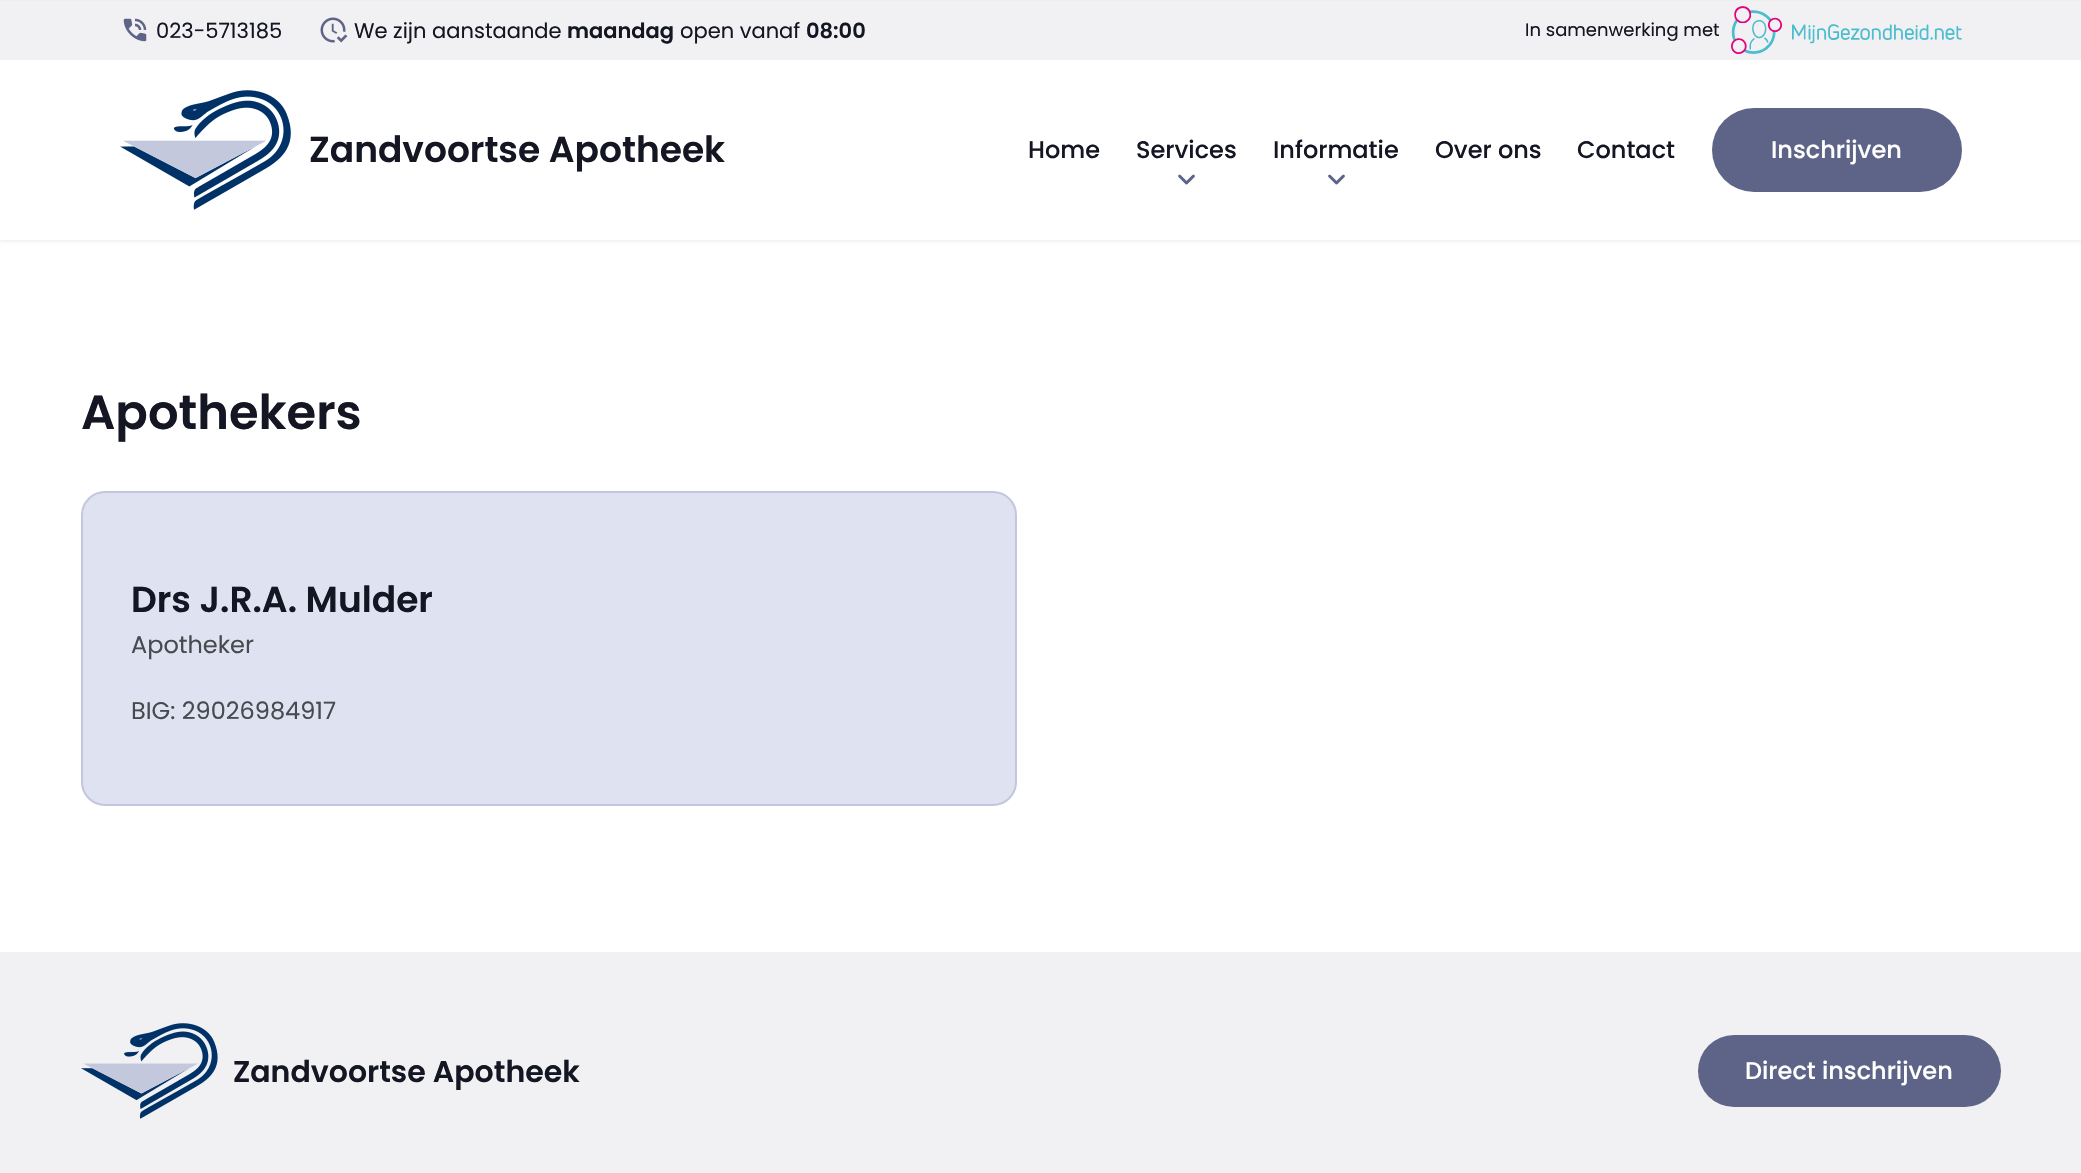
static SkFont makeFont(const char* family, int weight, float size, bool italic = false) {
  SkFontStyle style(weight, SkFontStyle::kNormal_Width,
    italic ? SkFontStyle::kItalic_Slant : SkFontStyle::kUpright_Slant);
  SkFont result(fontMgr->matchFamilyStyle(family, style), size);
  result.setSubpixel(true);
  return result;
}

static void text(SkCanvas* c, const char* s, float x, float y, const SkFont& font, SkColor color) {
  SkPaint ink(SkColor4f::FromColor(color));
  ink.setAntiAlias(true);
  c->drawString(s, x, y, font, ink);
}

static void box(SkCanvas* c, float l, float t, float r, float b, SkColor color) {
  SkPaint ink(SkColor4f::FromColor(color));
  ink.setAntiAlias(true);
  c->drawRect(SkRect::MakeLTRB(l, t, r, b), ink);
}

static void roundBox(SkCanvas* c, float l, float t, float r, float b, float radius, SkColor color) {
  SkPaint ink(SkColor4f::FromColor(color));
  ink.setAntiAlias(true);
  c->drawRoundRect(SkRect::MakeLTRB(l, t, r, b), radius, radius, ink);
}

static void picture(SkCanvas* c, const char* path, float l, float t, float r, float b) {
  auto image = SkImages::DeferredFromEncodedData(SkData::MakeFromFileName(path));
  c->drawImageRect(image, SkRect::MakeLTRB(l, t, r, b), SkSamplingOptions());
}

void draw(SkCanvas* c) {
  SkPaint paint;
  paint.setAntiAlias(true);
  c->clear(0xfff1f1f3);
  box(c, 0, 240, 2081, 952, 0xffffffff);
  paint.setColor(0x0d000000);
  paint.setMaskFilter(SkMaskFilter::MakeBlur(kNormal_SkBlurStyle, 1.5f));
  c->drawRect(SkRect::MakeLTRB(0, 2, 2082, 242), paint);
  paint.setMaskFilter(nullptr);
  box(c, 0, 1, 2081, 60, 0xfff1f1f3);
  picture(c, "img_01.png", 123, 18, 147, 42);
  SkFont face1 = makeFont("Poppins", 400, 21);
  text(c, "023-5713185", 156, 38, face1, 0xff141623);
  picture(c, "img_02.png", 320, 17, 348, 43);
  text(c, "We zijn aanstaande", 354, 38, face1, 0xff141623);
  SkFont face2 = makeFont("Poppins", 600, 21);
  text(c, "maandag", 567, 38, face2, 0xff141623);
  text(c, "open vanaf", 680, 38, face1, 0xff141623);
  text(c, "08:00", 806, 38, face2, 0xff141623);
  SkFont face3 = makeFont("Poppins", 400, 18);
  text(c, "In samenwerking met", 1525, 36, face3, 0xff141623);
  picture(c, "img_03.png", 1731, 6, 1962, 54);
  box(c, 0, 60, 2081, 240, 0xffffffff);
  picture(c, "img_04.png", 120, 90, 291, 210);
  SkFont face4 = makeFont("Poppins", 600, 36);
  text(c, "Zandvoortse Apotheek", 309, 162, face4, 0xff141623);
  SkFont face5 = makeFont("Poppins", 500, 24);
  text(c, "Home", 1028, 158, face5, 0xff141623);
  text(c, "Services", 1136, 158, face5, 0xff141623);
  picture(c, "img_05.png", 1178, 174, 1195, 185);
  text(c, "Informatie", 1273, 158, face5, 0xff141623);
  picture(c, "img_05.png", 1328, 174, 1345, 185);
  text(c, "Over ons", 1435, 158, face5, 0xff141623);
  text(c, "Contact", 1577, 158, face5, 0xff141623);
  roundBox(c, 1712, 108, 1962, 192, 42, 0xff5e6488);
  text(c, "Inschrijven", 1771, 158, face5, 0xffffffff);
  SkFont face6 = makeFont("Poppins", 600, 48);
  text(c, "Apothekers", 81, 429, face6, 0xff141623);
  paint.setColor(0xffdfe2f0);
  c->drawRoundRect(SkRect::MakeLTRB(82, 492, 1016, 805), 23, 23, paint);
  paint.setStyle(SkPaint::kStroke_Style);
  paint.setStrokeWidth(2);
  paint.setColor(0xffc2c7df);
  c->drawRoundRect(SkRect::MakeLTRB(82, 492, 1016, 805), 23, 23, paint);
  text(c, "Drs J.R.A. Mulder", 131, 612, face4, 0xff141623);
  SkFont face7 = makeFont("Poppins", 400, 24);
  text(c, "Apotheker", 131, 653, face7, 0xff494a4f);
  text(c, "BIG: 29026984917", 131, 719, face7, 0xff494a4f);
  picture(c, "img_06.png", 81, 1023, 218, 1119);
  SkFont face8 = makeFont("Poppins", 600, 30);
  text(c, "Zandvoortse Apotheek", 233, 1082, face8, 0xff141623);
  roundBox(c, 1698, 1035, 2001, 1107, 36, 0xff5e6488);
  text(c, "Direct inschrijven", 1745, 1079, face5, 0xffffffff);
}
